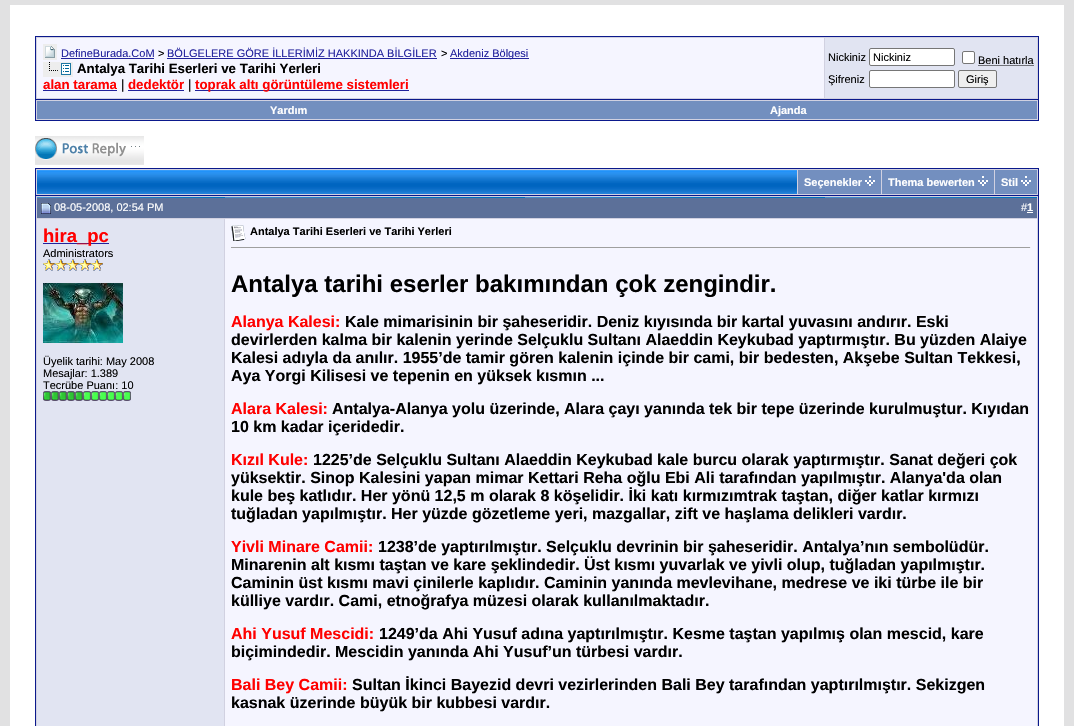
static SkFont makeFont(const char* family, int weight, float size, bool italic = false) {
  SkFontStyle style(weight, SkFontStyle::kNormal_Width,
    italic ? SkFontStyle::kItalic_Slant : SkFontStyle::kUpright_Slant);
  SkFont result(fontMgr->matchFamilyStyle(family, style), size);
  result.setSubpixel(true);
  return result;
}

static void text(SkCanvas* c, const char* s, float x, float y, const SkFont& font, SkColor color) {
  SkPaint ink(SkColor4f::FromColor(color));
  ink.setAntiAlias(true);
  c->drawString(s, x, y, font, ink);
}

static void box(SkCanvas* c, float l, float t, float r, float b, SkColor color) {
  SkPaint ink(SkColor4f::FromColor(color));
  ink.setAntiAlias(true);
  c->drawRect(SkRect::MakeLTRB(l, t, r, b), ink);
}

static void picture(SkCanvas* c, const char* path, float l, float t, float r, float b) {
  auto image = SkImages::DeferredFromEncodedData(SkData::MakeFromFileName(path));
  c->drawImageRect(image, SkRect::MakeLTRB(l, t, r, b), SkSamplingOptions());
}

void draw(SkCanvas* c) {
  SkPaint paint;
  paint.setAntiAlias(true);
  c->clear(0xffe1e1e2);
  box(c, 10, 5, 1064, 726, 0xffffffff);
  paint.setColor(0xffd1d1e1);
  c->drawRect(SkRect::MakeLTRB(35.5f, 36.5f, 1038.5f, 99.5f), paint);
  paint.setStyle(SkPaint::kStroke_Style);
  paint.setStrokeWidth(1);
  paint.setColor(0xff0b198c);
  c->drawRect(SkRect::MakeLTRB(35.5f, 36.5f, 1038.5f, 99.5f), paint);
  box(c, 37, 38, 824, 98, 0xfff5f5ff);
  picture(c, "img_01.png", 43, 44, 57, 60);
  SkFont face1 = makeFont("Liberation Sans", 400, 11);
  text(c, "DefineBurada.CoM", 61, 57, face1, 0xff22229c);
  box(c, 61, 58, 154, 59, 0xff22229c);
  text(c, ">", 158, 57, face1, 0xff000000);
  text(c, "BÖLGELERE GÖRE İLLERİMİZ HAKKINDA BİLGİLER", 167, 57, face1, 0xff22229c);
  box(c, 167, 58, 437, 59, 0xff22229c);
  text(c, ">", 441, 57, face1, 0xff000000);
  box(c, 450, 58, 529, 59, 0xff22229c);
  text(c, "Akdeniz Bölgesi", 450, 57, face1, 0xff22229c);
  picture(c, "img_02.png", 43, 62, 73, 77);
  SkFont face2 = makeFont("Liberation Sans", 700, 13.3f);
  text(c, "Antalya Tarihi Eserleri ve Tarihi Yerleri", 77, 73, face2, 0xff000000);
  text(c, "alan tarama", 43, 89, face2, 0xffff0000);
  box(c, 43, 90, 117, 91, 0xff22229c);
  SkFont face3 = makeFont("Liberation Sans", 400, 13.3f);
  text(c, "|", 121, 89, face3, 0xff000000);
  text(c, "dedektör", 128, 89, face2, 0xffff0000);
  box(c, 128, 90, 184, 91, 0xff22229c);
  text(c, "|", 188, 89, face3, 0xff000000);
  box(c, 195, 90, 409, 91, 0xff22229c);
  text(c, "toprak altı görüntüleme sistemleri", 195, 89, face2, 0xffff0000);
  box(c, 825, 38, 1037, 98, 0xffe1e4f2);
  text(c, "Nickiniz", 828, 61, face1, 0xff000000);
  paint.setStyle(SkPaint::kFill_Style);
  paint.setColor(0xffffffff);
  c->drawRoundRect(SkRect::MakeLTRB(869.5f, 48.5f, 954.5f, 65.5f), 1.5f, 1.5f, paint);
  paint.setStyle(SkPaint::kStroke_Style);
  paint.setColor(0xff767676);
  c->drawRoundRect(SkRect::MakeLTRB(869.5f, 48.5f, 954.5f, 65.5f), 1.5f, 1.5f, paint);
  text(c, "Nickiniz", 873, 61, face1, 0xff000000);
  paint.setStyle(SkPaint::kFill_Style);
  paint.setColor(0xffffffff);
  c->drawRoundRect(SkRect::MakeLTRB(962.5f, 51.5f, 974.5f, 63.5f), 1.5f, 1.5f, paint);
  paint.setStyle(SkPaint::kStroke_Style);
  paint.setColor(0xff767676);
  c->drawRoundRect(SkRect::MakeLTRB(962.5f, 51.5f, 974.5f, 63.5f), 1.5f, 1.5f, paint);
  text(c, "Beni hatırla", 978, 64, face1, 0xff000000);
  paint.setColor(0xff000000);
  paint.setPathEffect(SkDashPathEffect::Make({{1, 1}}, 0));
  c->drawPath(SkPathBuilder().moveTo(978.5f, 65.5f).lineTo(1034, 65.5f).detach(), paint);
  paint.setPathEffect(nullptr);
  text(c, "Şifreniz", 828, 83, face1, 0xff000000);
  paint.setStyle(SkPaint::kFill_Style);
  paint.setColor(0xffffffff);
  c->drawRoundRect(SkRect::MakeLTRB(869.5f, 70.5f, 954.5f, 87.5f), 1.5f, 1.5f, paint);
  paint.setStyle(SkPaint::kStroke_Style);
  paint.setColor(0xff767676);
  c->drawRoundRect(SkRect::MakeLTRB(869.5f, 70.5f, 954.5f, 87.5f), 1.5f, 1.5f, paint);
  paint.setStyle(SkPaint::kFill_Style);
  paint.setColor(0xffefefef);
  c->drawRoundRect(SkRect::MakeLTRB(958.5f, 70.5f, 996.5f, 87.5f), 1.5f, 1.5f, paint);
  paint.setStyle(SkPaint::kStroke_Style);
  paint.setColor(0xff767676);
  c->drawRoundRect(SkRect::MakeLTRB(958.5f, 70.5f, 996.5f, 87.5f), 1.5f, 1.5f, paint);
  text(c, "Giriş", 966, 83, face1, 0xff000000);
  box(c, 36, 100, 1038, 120, 0xffd1d1e1);
  box(c, 1038, 100, 1039, 121, 0xff0b198c);
  box(c, 35, 120, 1039, 121, 0xff0b198c);
  box(c, 35, 100, 36, 121, 0xff0b198c);
  box(c, 37, 101, 1037, 119, 0xff738fbf);
  SkFont face4 = makeFont("Liberation Sans", 700, 11);
  text(c, "Yardım", 270, 114, face4, 0xffffffff);
  text(c, "Ajanda", 770, 114, face4, 0xffffffff);
  picture(c, "img_03.png", 35, 136, 144, 165);
  box(c, 36, 169, 1038, 195, 0xffd1d1e1);
  box(c, 35, 168, 1039, 169, 0xff0b198c);
  box(c, 1038, 168, 1039, 195, 0xff0b198c);
  box(c, 35, 168, 36, 195, 0xff0b198c);
  picture(c, "img_04.png", 37, 170, 797, 194);
  box(c, 798, 170, 881, 194, 0xff738fbf);
  text(c, "Seçenekler", 804, 186, face4, 0xffffffff);
  picture(c, "img_05.png", 865, 176, 875, 186);
  box(c, 882, 170, 994, 194, 0xff738fbf);
  text(c, "Thema bewerten", 888, 186, face4, 0xffffffff);
  picture(c, "img_05.png", 978, 176, 988, 186);
  box(c, 995, 170, 1037, 194, 0xff738fbf);
  text(c, "Stil", 1001, 186, face4, 0xffffffff);
  picture(c, "img_05.png", 1021, 176, 1031, 186);
  paint.setColor(0xff0b198c);
  c->drawRect(SkRect::MakeLTRB(35.5f, 195.5f, 1038.5f, 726.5f), paint);
  box(c, 37, 198, 1037, 218, 0xff5c7099);
  picture(c, "img_06.png", 37, 197, 225, 198);
  box(c, 36, 196, 1038, 197, 0xffd1d1e1);
  box(c, 36, 218, 225, 219, 0xffd1d1e1);
  box(c, 36, 196, 37, 726, 0xffd1d1e1);
  picture(c, "img_07.png", 41, 203, 51, 214);
  text(c, "08-05-2008, 02:54 PM", 54, 211, face1, 0xffffffff);
  picture(c, "img_08.png", 225, 197, 1037, 198);
  box(c, 1037, 196, 1038, 726, 0xffd1d1e1);
  box(c, 225, 218, 1038, 219, 0xffd1d1e1);
  text(c, "#", 1021, 211, face1, 0xffffffff);
  text(c, "1", 1027, 211, face4, 0xffffffff);
  box(c, 1027, 212, 1033, 213, 0xffffffff);
  box(c, 37, 219, 224, 726, 0xffe1e4f2);
  box(c, 224, 219, 225, 726, 0xffd1d1e1);
  box(c, 43, 243, 109, 244, 0xff22229c);
  SkFont face5 = makeFont("Liberation Sans", 700, 18.5f);
  text(c, "hira_pc", 43, 242, face5, 0xffff0000);
  text(c, "Administrators", 43, 257, face1, 0xff000000);
  picture(c, "img_09.png", 43, 259, 103, 271);
  picture(c, "img_10.png", 43, 283, 123, 343);
  text(c, "Üyelik tarihi: May 2008", 43, 365, face1, 0xff000000);
  text(c, "Mesajlar: 1.389", 43, 377, face1, 0xff000000);
  text(c, "Tecrübe Puanı: 10", 43, 389, face1, 0xff000000);
  picture(c, "img_11.png", 43, 391, 51, 401);
  picture(c, "img_11.png", 51, 391, 59, 401);
  picture(c, "img_11.png", 59, 391, 67, 401);
  picture(c, "img_11.png", 67, 391, 75, 401);
  picture(c, "img_11.png", 75, 391, 83, 401);
  picture(c, "img_12.png", 83, 391, 91, 401);
  picture(c, "img_12.png", 91, 391, 99, 401);
  picture(c, "img_12.png", 99, 391, 107, 401);
  picture(c, "img_12.png", 107, 391, 115, 401);
  picture(c, "img_12.png", 115, 391, 123, 401);
  picture(c, "img_12.png", 123, 391, 131, 401);
  box(c, 225, 219, 1037, 726, 0xfff5f5ff);
  picture(c, "img_13.png", 231, 225, 246, 241);
  text(c, "Antalya Tarihi Eserleri ve Tarihi Yerleri", 250, 235, face4, 0xff000000);
  box(c, 231, 247, 1031, 248, 0xff9f9f9f);
  box(c, 1030, 247, 1031, 248, 0xffeeeeee);
  SkFont face6 = makeFont("Liberation Sans", 700, 24);
  text(c, "Antalya tarihi eserler bakımından çok zengindir.", 231, 292, face6, 0xff000000);
  SkFont face7 = makeFont("Liberation Sans", 700, 16);
  text(c, "Alanya Kalesi:", 231, 327, face7, 0xffff0000);
  text(c, "Kale mimarisinin bir şaheseridir. Deniz kıyısında bir kartal yuvasını andırır. Eski", 345, 327, face7, 0xff000000);
  text(c, "devirlerden kalma bir kalenin yerinde Selçuklu Sultanı Alaeddin Keykubad yaptırmıştır. Bu yüzden Alaiye", 231, 345, face7, 0xff000000);
  text(c, "Kalesi adıyla da anılır. 1955’de tamir gören kalenin içinde bir cami, bir bedesten, Akşebe Sultan Tekkesi,", 231, 363, face7, 0xff000000);
  text(c, "Aya Yorgi Kilisesi ve tepenin en yüksek kısmın ...", 231, 381, face7, 0xff000000);
  text(c, "Alara Kalesi:", 231, 414, face7, 0xffff0000);
  text(c, "Antalya-Alanya yolu üzerinde, Alara çayı yanında tek bir tepe üzerinde kurulmuştur. Kıyıdan", 332, 414, face7, 0xff000000);
  text(c, "10 km kadar içeridedir.", 231, 432, face7, 0xff000000);
  text(c, "Kızıl Kule:", 231, 465, face7, 0xffff0000);
  text(c, "1225’de Selçuklu Sultanı Alaeddin Keykubad kale burcu olarak yaptırmıştır. Sanat değeri çok", 313, 465, face7, 0xff000000);
  text(c, "yüksektir. Sinop Kalesini yapan mimar Kettari Reha oğlu Ebi Ali tarafından yapılmıştır. Alanya'da olan", 231, 483, face7, 0xff000000);
  text(c, "kule beş katlıdır. Her yönü 12,5 m olarak 8 köşelidir. İki katı kırmızımtrak taştan, diğer katlar kırmızı", 231, 501, face7, 0xff000000);
  text(c, "tuğladan yapılmıştır. Her yüzde gözetleme yeri, mazgallar, zift ve haşlama delikleri vardır.", 231, 519, face7, 0xff000000);
  text(c, "Yivli Minare Camii:", 231, 552, face7, 0xffff0000);
  text(c, "1238’de yaptırılmıştır. Selçuklu devrinin bir şaheseridir. Antalya’nın sembolüdür.", 378, 552, face7, 0xff000000);
  text(c, "Minarenin alt kısmı taştan ve kare şeklindedir. Üst kısmı yuvarlak ve yivli olup, tuğladan yapılmıştır.", 231, 570, face7, 0xff000000);
  text(c, "Caminin üst kısmı mavi çinilerle kaplıdır. Caminin yanında mevlevihane, medrese ve iki türbe ile bir", 231, 588, face7, 0xff000000);
  text(c, "külliye vardır. Cami, etnoğrafya müzesi olarak kullanılmaktadır.", 231, 606, face7, 0xff000000);
  text(c, "Ahi Yusuf Mescidi:", 231, 639, face7, 0xffff0000);
  text(c, "1249’da Ahi Yusuf adına yaptırılmıştır. Kesme taştan yapılmış olan mescid, kare", 379, 639, face7, 0xff000000);
  text(c, "biçimindedir. Mescidin yanında Ahi Yusuf’un türbesi vardır.", 231, 657, face7, 0xff000000);
  text(c, "Bali Bey Camii:", 231, 690, face7, 0xffff0000);
  text(c, "Sultan İkinci Bayezid devri vezirlerinden Bali Bey tarafından yaptırılmıştır. Sekizgen", 352, 690, face7, 0xff000000);
  text(c, "kasnak üzerinde büyük bir kubbesi vardır.", 231, 708, face7, 0xff000000);
}
